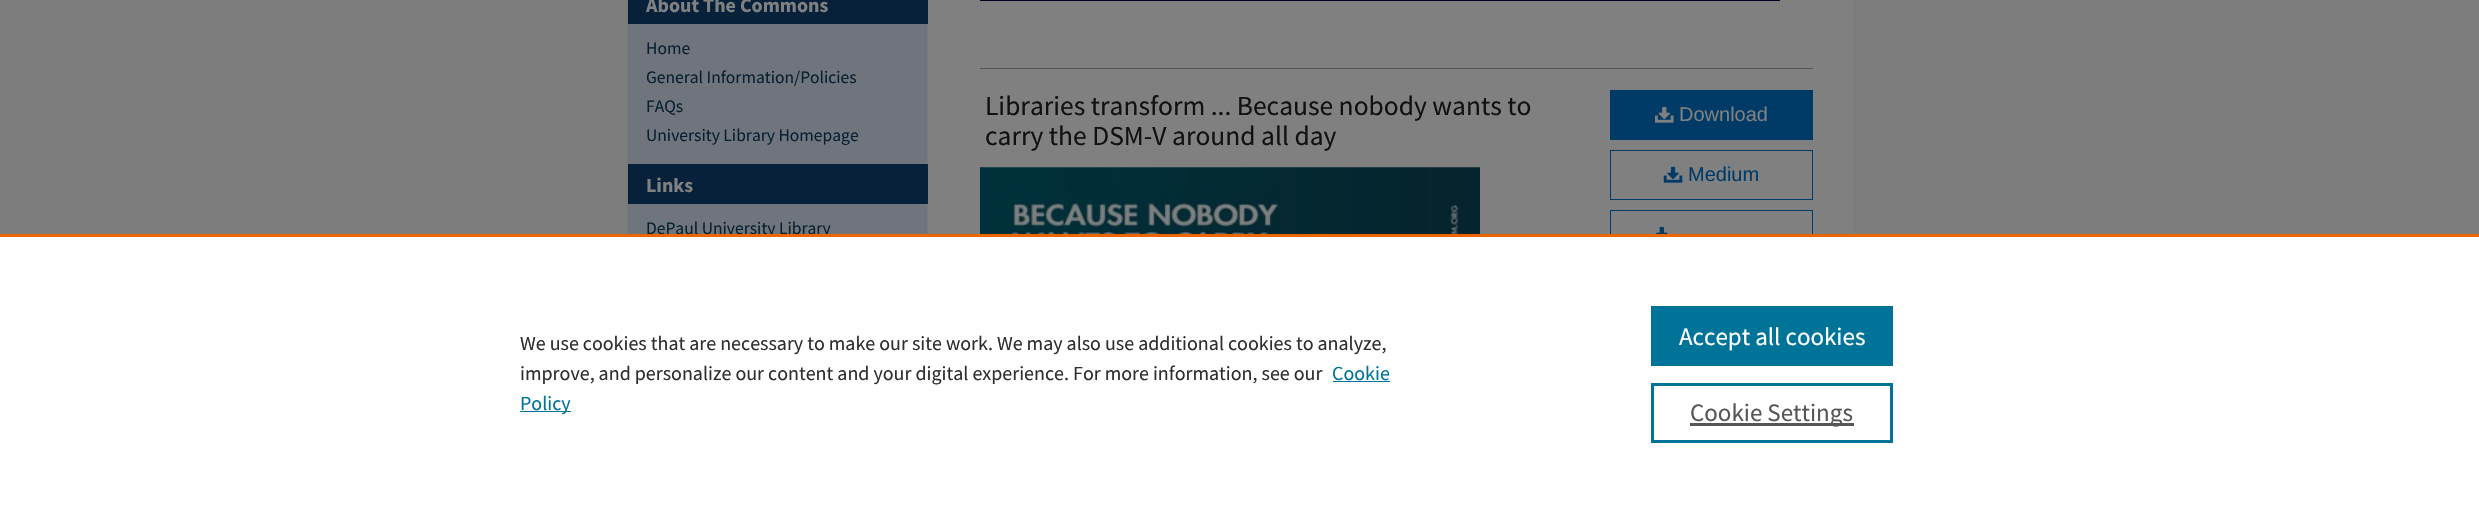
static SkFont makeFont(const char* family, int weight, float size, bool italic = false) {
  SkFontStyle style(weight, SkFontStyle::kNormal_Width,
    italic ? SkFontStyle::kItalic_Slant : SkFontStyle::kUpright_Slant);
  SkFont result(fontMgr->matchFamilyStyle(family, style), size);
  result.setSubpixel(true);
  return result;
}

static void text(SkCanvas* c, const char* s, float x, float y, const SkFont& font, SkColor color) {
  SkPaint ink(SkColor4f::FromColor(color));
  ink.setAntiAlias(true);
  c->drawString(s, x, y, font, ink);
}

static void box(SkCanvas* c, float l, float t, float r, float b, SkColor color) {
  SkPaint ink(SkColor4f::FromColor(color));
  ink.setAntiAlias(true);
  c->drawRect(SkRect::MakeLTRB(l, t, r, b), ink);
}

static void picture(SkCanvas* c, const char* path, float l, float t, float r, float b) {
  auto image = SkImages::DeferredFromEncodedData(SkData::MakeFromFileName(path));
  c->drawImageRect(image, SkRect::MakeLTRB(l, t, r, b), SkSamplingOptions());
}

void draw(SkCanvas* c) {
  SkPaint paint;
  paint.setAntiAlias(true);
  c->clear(0xff7d7d7d);
  picture(c, "img_01.png", 627, 0, 940, 234);
  box(c, 628, 0, 928, 24, 0xff07213a);
  SkFont face1 = makeFont("Source Sans Pro", 700, 20);
  text(c, "About The Commons", 646, 12, face1, 0xff808080);
  SkFont face2 = makeFont("Source Sans Pro", 400, 17.5f);
  text(c, "Home", 646, 54, face2, 0xff072031);
  text(c, "General Information/Policies", 646, 83, face2, 0xff072031);
  text(c, "FAQs", 646, 112, face2, 0xff072031);
  text(c, "University Library Homepage", 646, 141, face2, 0xff072031);
  box(c, 628, 164, 928, 204, 0xff07213a);
  text(c, "Links", 646, 192, face1, 0xff808080);
  text(c, "DePaul University Library", 646, 234, face2, 0xff072031);
  box(c, 940, 0, 1853, 234, 0xff808080);
  box(c, 980, 0, 1780, 1, 0xff000020);
  box(c, 980, 68, 1813, 69, 0xff555555);
  SkFont face3 = makeFont("Source Sans Pro", 400, 27.5f);
  text(c, "Libraries transform ... Because nobody wants to", 985, 115, face3, 0xff111111);
  text(c, "carry the DSM-V around all day", 985, 145, face3, 0xff111111);
  picture(c, "img_02.png", 980, 167, 1480, 234);
  box(c, 1610, 90, 1813, 140, 0xff003a66);
  picture(c, "img_03.png", 1655, 106, 1674, 123);
  SkFont face4 = makeFont("Liberation Sans", 400, 20);
  text(c, "Download", 1679, 121, face4, 0xff808080);
  paint.setStyle(SkPaint::kStroke_Style);
  paint.setStrokeWidth(1);
  paint.setColor(0xff003a66);
  c->drawRect(SkRect::MakeLTRB(1610.5f, 150.5f, 1812.5f, 199.5f), paint);
  picture(c, "img_04.png", 1663, 166, 1683, 183);
  text(c, "Medium", 1688, 181, face4, 0xff003a66);
  c->drawRect(SkRect::MakeLTRB(1610.5f, 210.5f, 1812.5f, 259.5f), paint);
  picture(c, "img_05.png", 1656, 226, 1668, 234);
  box(c, 0, 237, 2479, 508, 0xffffffff);
  box(c, 0, 234, 2479, 237, 0xffeb6500);
  SkFont face5 = makeFont("Source Sans Pro", 400, 20);
  text(c, "We use cookies that are necessary to make our site work. We may also use additional cookies to analyze,", 520, 350, face5, 0xff2e2e2e);
  text(c, "improve, and personalize our content and your digital experience. For more information, see our", 520, 380, face5, 0xff2e2e2e);
  text(c, "Cookie", 1332, 380, face5, 0xff007398);
  box(c, 1333, 381, 1390, 382, 0xff007398);
  box(c, 520, 411, 571, 412, 0xff007398);
  text(c, "Policy", 520, 410, face5, 0xff007398);
  box(c, 1651, 306, 1893, 366, 0xff007398);
  SkFont face6 = makeFont("Source Sans Pro", 400, 25);
  text(c, "Accept all cookies", 1679, 345, face6, 0xffffffff);
  paint.setStrokeWidth(3);
  paint.setColor(0xff007398);
  c->drawRect(SkRect::MakeLTRB(1652.5f, 384.5f, 1891.5f, 441.5f), paint);
  box(c, 1690, 423, 1854, 426, 0xff565656);
  text(c, "Cookie Settings", 1690, 421, face6, 0xff565656);
}
